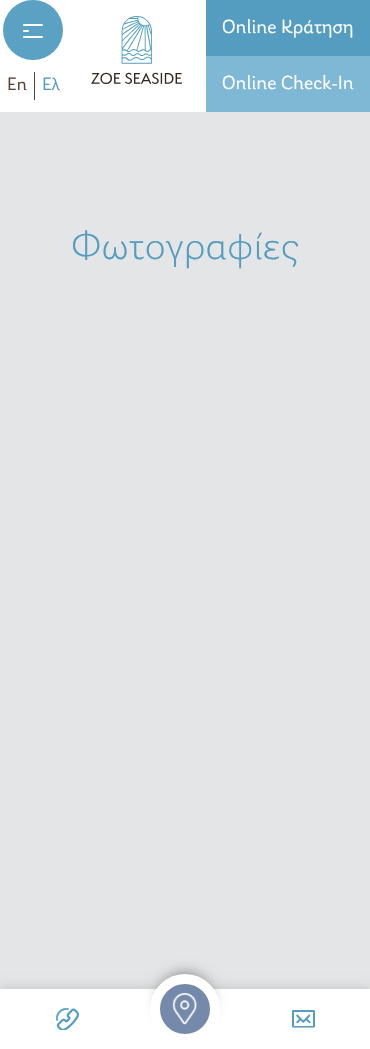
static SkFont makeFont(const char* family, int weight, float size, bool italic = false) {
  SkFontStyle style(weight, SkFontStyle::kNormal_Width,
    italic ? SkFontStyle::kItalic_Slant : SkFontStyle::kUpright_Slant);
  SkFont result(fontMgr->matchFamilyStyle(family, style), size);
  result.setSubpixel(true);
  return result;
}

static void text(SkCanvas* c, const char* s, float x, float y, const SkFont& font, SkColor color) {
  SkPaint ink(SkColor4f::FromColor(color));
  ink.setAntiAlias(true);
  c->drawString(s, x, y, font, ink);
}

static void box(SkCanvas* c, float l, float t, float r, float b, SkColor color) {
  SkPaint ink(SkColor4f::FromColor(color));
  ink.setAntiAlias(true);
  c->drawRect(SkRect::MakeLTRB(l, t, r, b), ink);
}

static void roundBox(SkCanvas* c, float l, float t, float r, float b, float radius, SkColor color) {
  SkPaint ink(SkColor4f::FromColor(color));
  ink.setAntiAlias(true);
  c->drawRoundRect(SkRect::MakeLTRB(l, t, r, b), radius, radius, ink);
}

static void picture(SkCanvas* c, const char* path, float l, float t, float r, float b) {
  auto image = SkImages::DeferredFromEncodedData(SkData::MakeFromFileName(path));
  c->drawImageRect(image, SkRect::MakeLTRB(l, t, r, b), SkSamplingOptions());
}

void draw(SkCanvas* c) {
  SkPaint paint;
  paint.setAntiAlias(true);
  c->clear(0xffe3e5e6);
  box(c, 0, 0, 206, 112, 0xffffffff);
  paint.setColor(0xff5ba1c3);
  c->drawCircle(33, 30, 30, paint);
  roundBox(c, 23, 24, 43, 26, 1, 0xffffffff);
  roundBox(c, 23, 30, 29, 32, 1, 0xffffffff);
  roundBox(c, 23, 36, 43, 38, 1, 0xffffffff);
  box(c, 34, 72, 35, 100, 0xff58423d);
  SkFont face1 = makeFont("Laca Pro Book", 400, 19);
  text(c, "En", 7, 90, face1, 0xff58423d);
  text(c, "Ελ", 42, 90, face1, 0xff549dc0);
  picture(c, "img_01.png", 91, 16, 182, 84);
  box(c, 206, 0, 370, 56, 0xff549dc0);
  SkFont face2 = makeFont("Laca Pro Book", 400, 20);
  text(c, "Online Κράτηση", 222, 33, face2, 0xffffffff);
  box(c, 206, 56, 370, 112, 0xff7fb8d4);
  text(c, "Online Check-In", 222, 89, face2, 0xffffffff);
  paint.setColor(0x1a000000);
  paint.setMaskFilter(SkMaskFilter::MakeBlur(kNormal_SkBlurStyle, 4.5f));
  c->drawRect(SkRect::MakeLTRB(0, 986, 370, 1046), paint);
  paint.setMaskFilter(nullptr);
  box(c, 0, 989, 370, 1049, 0xffffffff);
  picture(c, "img_02.png", 56, 1008, 79, 1030);
  paint.setColor(0x80000000);
  paint.setMaskFilter(SkMaskFilter::MakeBlur(kNormal_SkBlurStyle, 7.5f));
  c->drawRoundRect(SkRect::MakeLTRB(160, 974, 210, 1024), 25, 25, paint);
  paint.setMaskFilter(nullptr);
  paint.setColor(0xff7589ab);
  c->drawCircle(185, 1009, 30, paint);
  paint.setStyle(SkPaint::kStroke_Style);
  paint.setStrokeWidth(10);
  paint.setColor(0xffffffff);
  c->drawCircle(185, 1009, 30, paint);
  picture(c, "img_03.png", 172, 993, 197, 1025);
  picture(c, "img_04.png", 292, 1010, 315, 1028);
  SkFont face3 = makeFont("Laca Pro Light", 300, 42);
  text(c, "Φωτογραφίες", 71, 259, face3, 0xff549dc0);
}
